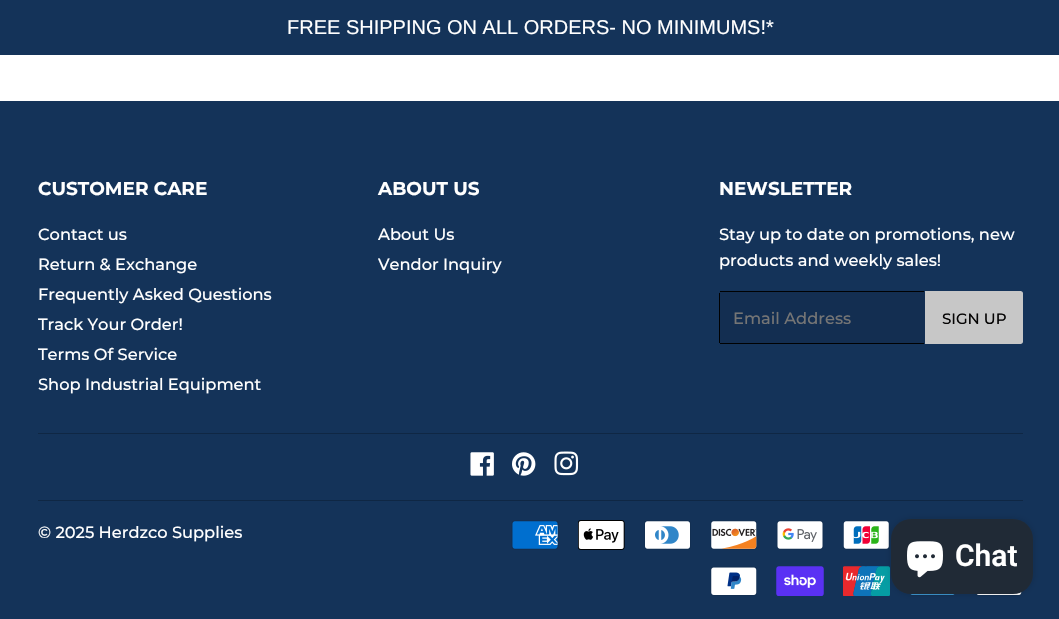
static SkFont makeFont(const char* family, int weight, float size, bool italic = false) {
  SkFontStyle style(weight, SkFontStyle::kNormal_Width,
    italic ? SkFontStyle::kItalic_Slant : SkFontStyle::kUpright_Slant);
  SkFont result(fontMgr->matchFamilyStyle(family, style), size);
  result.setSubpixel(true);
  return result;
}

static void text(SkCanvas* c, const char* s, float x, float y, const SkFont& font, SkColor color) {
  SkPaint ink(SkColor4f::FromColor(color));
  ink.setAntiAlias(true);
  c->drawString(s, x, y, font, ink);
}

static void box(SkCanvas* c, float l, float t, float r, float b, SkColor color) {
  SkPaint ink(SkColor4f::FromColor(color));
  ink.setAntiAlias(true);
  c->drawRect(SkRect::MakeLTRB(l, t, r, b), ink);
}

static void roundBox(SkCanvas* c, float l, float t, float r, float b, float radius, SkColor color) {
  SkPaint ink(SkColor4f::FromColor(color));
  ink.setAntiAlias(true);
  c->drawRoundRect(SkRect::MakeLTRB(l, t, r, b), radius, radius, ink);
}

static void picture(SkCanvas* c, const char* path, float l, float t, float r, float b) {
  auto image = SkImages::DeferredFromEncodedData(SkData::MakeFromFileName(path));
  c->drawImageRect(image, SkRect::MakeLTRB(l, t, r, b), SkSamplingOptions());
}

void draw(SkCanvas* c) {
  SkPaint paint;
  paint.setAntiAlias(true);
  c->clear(0xffffffff);
  box(c, 0, 0, 1059, 55, 0xff143359);
  SkFont face1 = makeFont("Liberation Sans", 400, 20);
  text(c, "FREE SHIPPING ON ALL ORDERS- NO MINIMUMS!*", 287, 34, face1, 0xffffffff);
  box(c, 0, 101, 1059, 619, 0xff143359);
  SkFont face2 = makeFont("Montserrat", 700, 18.5f);
  text(c, "CUSTOMER CARE", 38, 195, face2, 0xffffffff);
  SkFont face3 = makeFont("Montserrat", 500, 16.25f);
  text(c, "Contact us", 38, 240, face3, 0xffffffff);
  text(c, "Return & Exchange", 38, 270, face3, 0xffffffff);
  text(c, "Frequently Asked Questions", 38, 300, face3, 0xffffffff);
  text(c, "Track Your Order!", 38, 330, face3, 0xffffffff);
  text(c, "Terms Of Service", 38, 360, face3, 0xffffffff);
  text(c, "Shop Industrial Equipment", 38, 390, face3, 0xffffffff);
  text(c, "ABOUT US", 378, 195, face2, 0xffffffff);
  text(c, "About Us", 378, 240, face3, 0xffffffff);
  text(c, "Vendor Inquiry", 378, 270, face3, 0xffffffff);
  text(c, "NEWSLETTER", 719, 195, face2, 0xffffffff);
  text(c, "Stay up to date on promotions, new", 719, 240, face3, 0xffffffff);
  text(c, "products and weekly sales!", 719, 266, face3, 0xffffffff);
  roundBox(c, 719, 291, 925, 344, 2.5f, 0xff132e51);
  box(c, 720, 291, 924, 292, 0xff000102);
  box(c, 720, 343, 924, 344, 0xff000102);
  box(c, 719, 293, 720, 343, 0xff000102);
  text(c, "Email Address", 733, 324, face3, 0xff757575);
  paint.setColor(0xffc7c7c7);
  c->drawPath(SkPathBuilder().moveTo(925, 291).lineTo(1020.5f, 291).cubicTo(1022, 291, 1023, 292, 1023, 293.5f).lineTo(1023, 341.5f).cubicTo(1023, 343, 1022, 344, 1020.5f, 344).lineTo(925, 344).close().detach(), paint);
  SkFont face4 = makeFont("Montserrat", 500, 15);
  text(c, "SIGN UP", 942, 324, face4, 0xff050404);
  box(c, 38, 433, 1023, 434, 0xff0f2744);
  picture(c, "img_01.png", 470, 452, 494, 476);
  picture(c, "img_02.png", 512, 452, 536, 476);
  picture(c, "img_03.png", 554, 451, 579, 476);
  box(c, 38, 500, 1023, 501, 0xff0f2744);
  text(c, "© 2025 Herdzco Supplies", 38, 538, face3, 0xffffffff);
  picture(c, "img_04.png", 511, 520, 559, 550);
  picture(c, "img_05.png", 578, 520, 625, 550);
  picture(c, "img_06.png", 644, 520, 691, 550);
  picture(c, "img_07.png", 710, 520, 757, 550);
  picture(c, "img_08.png", 776, 520, 824, 550);
  picture(c, "img_09.png", 843, 520, 890, 550);
  picture(c, "img_10.png", 1019, 520, 1022, 522);
  picture(c, "img_11.png", 710, 566, 757, 596);
  picture(c, "img_12.png", 776, 566, 824, 596);
  picture(c, "img_13.png", 843, 566, 890, 596);
  picture(c, "img_14.png", 909, 593, 955, 596);
  picture(c, "img_15.png", 975, 591, 1022, 596);
  paint.setColor(0x26000000);
  paint.setMaskFilter(SkMaskFilter::MakeBlur(kNormal_SkBlurStyle, 3));
  c->drawRoundRect(SkRect::MakeLTRB(891, 519, 1033, 594), 20, 20, paint);
  paint.setMaskFilter(nullptr);
  roundBox(c, 891, 519, 1033, 594, 20, 0xff202a36);
  picture(c, "img_16.png", 907, 541, 943, 578);
  SkFont face5 = makeFont("Roboto", 600, 30);
  text(c, "Chat", 955, 566, face5, 0xffffffff);
}
